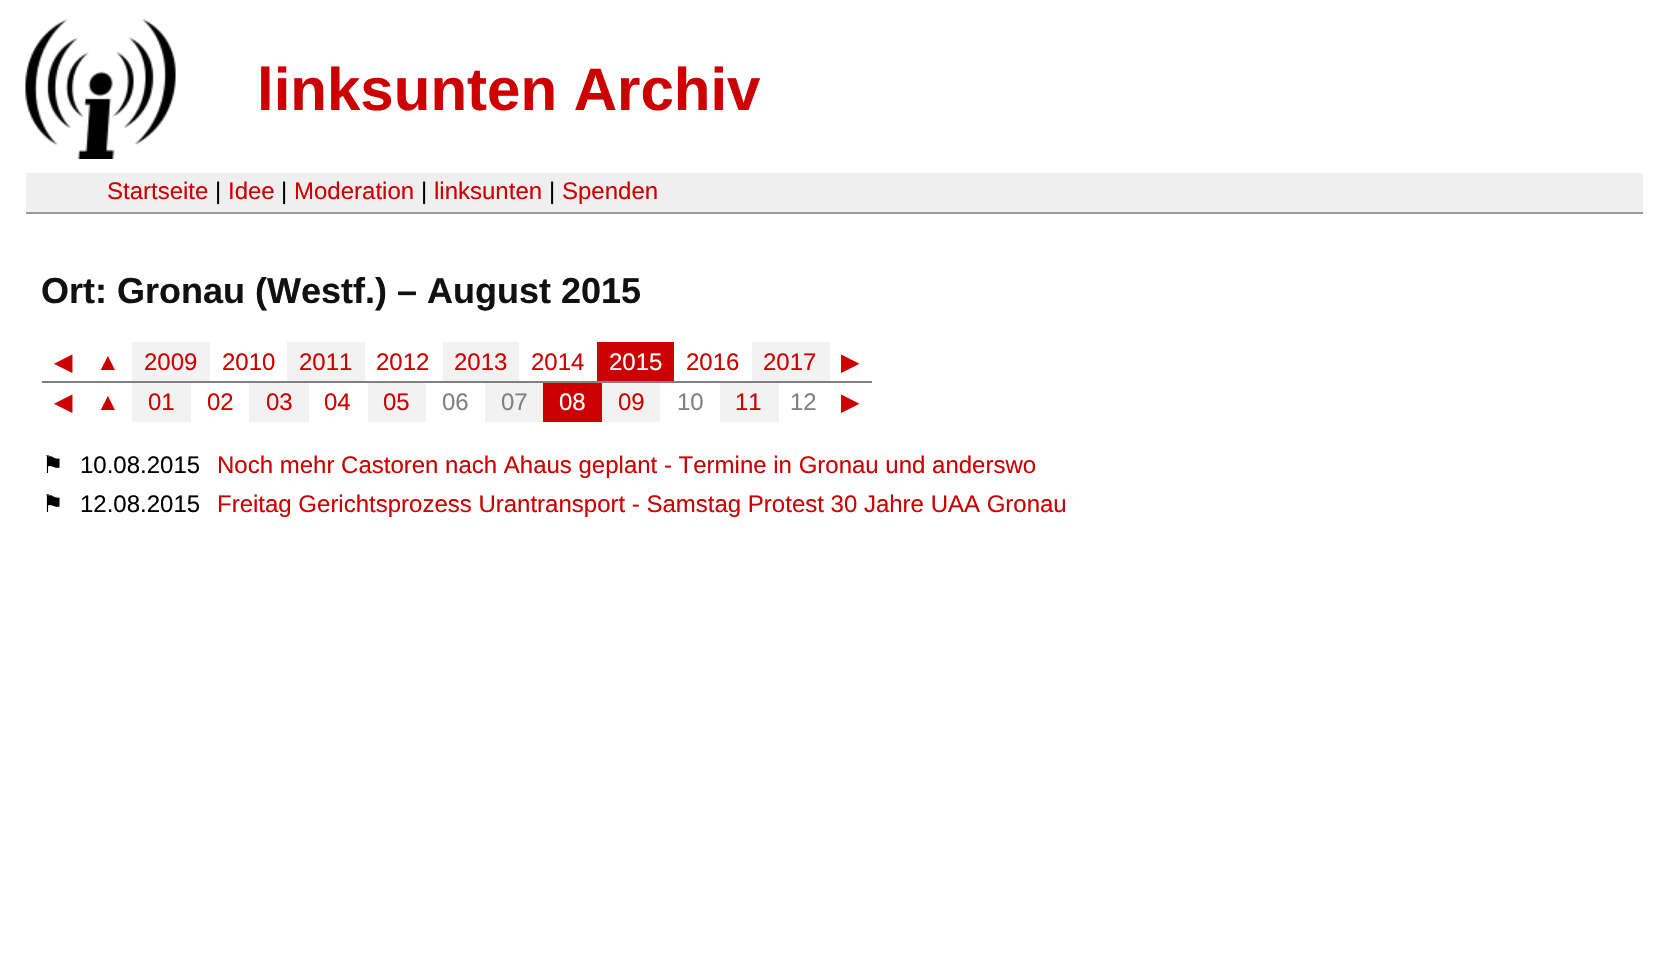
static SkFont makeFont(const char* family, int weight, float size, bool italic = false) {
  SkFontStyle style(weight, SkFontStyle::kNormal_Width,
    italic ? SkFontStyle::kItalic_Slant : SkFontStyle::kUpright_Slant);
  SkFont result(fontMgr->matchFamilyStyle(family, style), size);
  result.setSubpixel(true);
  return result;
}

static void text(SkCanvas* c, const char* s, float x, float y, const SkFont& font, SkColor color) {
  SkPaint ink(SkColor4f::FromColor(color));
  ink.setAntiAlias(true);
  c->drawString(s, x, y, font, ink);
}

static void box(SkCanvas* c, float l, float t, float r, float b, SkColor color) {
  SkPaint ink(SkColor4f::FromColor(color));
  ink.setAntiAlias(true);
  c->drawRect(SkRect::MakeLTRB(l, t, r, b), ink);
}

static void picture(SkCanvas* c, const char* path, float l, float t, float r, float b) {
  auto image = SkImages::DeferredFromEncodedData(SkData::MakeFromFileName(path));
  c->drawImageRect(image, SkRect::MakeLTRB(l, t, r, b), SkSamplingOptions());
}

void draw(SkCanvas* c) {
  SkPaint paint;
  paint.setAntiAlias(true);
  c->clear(0xffffffff);
  picture(c, "img_01.png", 25, 19, 176, 159);
  SkFont face1 = makeFont("Liberation Sans", 700, 60);
  text(c, "linksunten Archiv", 257, 110, face1, 0xffcc0000);
  box(c, 26, 173, 1643, 212, 0xffefefef);
  box(c, 26, 212, 1643, 214, 0xff999999);
  SkFont face2 = makeFont("Liberation Sans", 400, 24);
  text(c, "Startseite", 107, 199, face2, 0xffcc0000);
  text(c, "|", 215, 199, face2, 0xff000000);
  text(c, "Idee", 228, 199, face2, 0xffcc0000);
  text(c, "|", 281, 199, face2, 0xff000000);
  text(c, "Moderation", 294, 199, face2, 0xffcc0000);
  text(c, "|", 421, 199, face2, 0xff000000);
  text(c, "linksunten", 434, 199, face2, 0xffcc0000);
  text(c, "|", 549, 199, face2, 0xff000000);
  text(c, "Spenden", 562, 199, face2, 0xffcc0000);
  SkFont face3 = makeFont("Liberation Sans", 700, 36);
  text(c, "Ort: Gronau (Westf.) – August 2015", 41, 303, face3, 0xff111111);
  box(c, 42, 381, 872, 383, 0xff808080);
  SkFont face4 = makeFont("DejaVu Sans", 400, 24);
  text(c, "◀", 54, 370, face4, 0xffcc0000);
  text(c, "▲", 96, 370, face2, 0xffcc0000);
  box(c, 132, 342, 210, 381, 0xfff2f2f2);
  text(c, "2009", 144, 370, face2, 0xffcc0000);
  text(c, "2010", 222, 370, face2, 0xffcc0000);
  box(c, 287, 342, 365, 381, 0xfff2f2f2);
  text(c, "2011", 299, 370, face2, 0xffcc0000);
  text(c, "2012", 376, 370, face2, 0xffcc0000);
  box(c, 443, 342, 519, 381, 0xfff2f2f2);
  text(c, "2013", 454, 370, face2, 0xffcc0000);
  text(c, "2014", 531, 370, face2, 0xffcc0000);
  box(c, 597, 342, 674, 381, 0xffcc0000);
  text(c, "2015", 609, 370, face2, 0xffffffff);
  text(c, "2016", 686, 370, face2, 0xffcc0000);
  box(c, 752, 342, 830, 381, 0xfff2f2f2);
  text(c, "2017", 763, 370, face2, 0xffcc0000);
  text(c, "▶", 841, 370, face4, 0xffcc0000);
  text(c, "◀", 54, 410, face4, 0xffcc0000);
  text(c, "▲", 96, 410, face2, 0xffcc0000);
  box(c, 132, 383, 191, 422, 0xfff2f2f2);
  text(c, "01", 148, 410, face2, 0xffcc0000);
  text(c, "02", 207, 410, face2, 0xffcc0000);
  box(c, 249, 383, 309, 422, 0xfff2f2f2);
  text(c, "03", 266, 410, face2, 0xffcc0000);
  text(c, "04", 324, 410, face2, 0xffcc0000);
  box(c, 368, 383, 426, 422, 0xfff2f2f2);
  text(c, "05", 383, 410, face2, 0xffcc0000);
  text(c, "06", 442, 410, face2, 0xff808080);
  box(c, 485, 383, 543, 422, 0xfff2f2f2);
  text(c, "07", 501, 410, face2, 0xff808080);
  box(c, 543, 383, 602, 422, 0xffcc0000);
  text(c, "08", 559, 410, face2, 0xffffffff);
  box(c, 602, 383, 660, 422, 0xfff2f2f2);
  text(c, "09", 618, 410, face2, 0xffcc0000);
  text(c, "10", 677, 410, face2, 0xff808080);
  box(c, 720, 383, 779, 422, 0xfff2f2f2);
  text(c, "11", 735, 410, face2, 0xffcc0000);
  text(c, "12", 790, 410, face2, 0xff808080);
  text(c, "▶", 841, 410, face4, 0xffcc0000);
  text(c, "⚑", 42, 473, face4, 0xff000000);
  text(c, "10.08.2015", 80, 473, face2, 0xff000000);
  text(c, "Noch mehr Castoren nach Ahaus geplant - Termine in Gronau und anderswo", 217, 473, face2, 0xffcc0000);
  text(c, "⚑", 42, 512, face4, 0xff000000);
  text(c, "12.08.2015", 80, 512, face2, 0xff000000);
  text(c, "Freitag Gerichtsprozess Urantransport - Samstag Protest 30 Jahre UAA Gronau", 217, 512, face2, 0xffcc0000);
}
